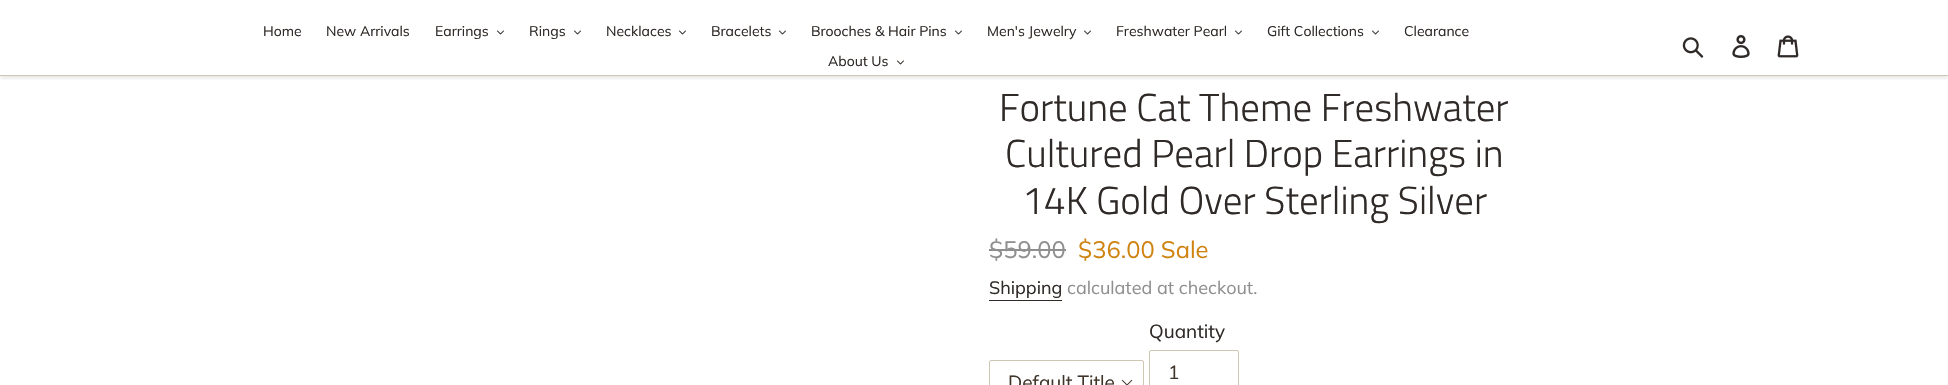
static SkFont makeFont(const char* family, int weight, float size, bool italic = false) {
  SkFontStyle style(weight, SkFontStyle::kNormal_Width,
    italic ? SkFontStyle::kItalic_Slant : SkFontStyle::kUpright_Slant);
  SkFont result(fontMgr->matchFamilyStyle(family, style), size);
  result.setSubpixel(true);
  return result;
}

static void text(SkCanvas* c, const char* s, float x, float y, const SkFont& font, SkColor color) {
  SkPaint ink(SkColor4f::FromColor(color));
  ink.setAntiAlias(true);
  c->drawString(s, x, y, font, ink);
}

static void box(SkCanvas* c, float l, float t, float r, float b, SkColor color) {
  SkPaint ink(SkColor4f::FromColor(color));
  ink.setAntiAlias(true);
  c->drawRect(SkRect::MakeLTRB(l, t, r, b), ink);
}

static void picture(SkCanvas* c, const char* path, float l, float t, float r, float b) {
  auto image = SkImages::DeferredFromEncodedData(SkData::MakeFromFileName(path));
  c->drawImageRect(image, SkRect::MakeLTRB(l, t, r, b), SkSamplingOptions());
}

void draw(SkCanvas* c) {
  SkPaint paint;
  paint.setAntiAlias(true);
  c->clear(0xffffffff);
  c->save();
  c->clipRect(SkRect::MakeLTRB(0, 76, 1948, 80));
  paint.setColor(0x1a000000);
  paint.setMaskFilter(SkMaskFilter::MakeBlur(kNormal_SkBlurStyle, 2));
  c->drawRect(SkRect::MakeLTRB(0, 2, 1948, 78), paint);
  paint.setMaskFilter(nullptr);
  c->restore();
  box(c, 0, 75, 1948, 76, 0xffcfc6b4);
  SkFont face1 = makeFont("Muli", 400, 14);
  text(c, "Home", 263, 36, face1, 0xff2f2a27);
  text(c, "New Arrivals", 326, 36, face1, 0xff2f2a27);
  text(c, "Earrings", 435, 36, face1, 0xff2f2a27);
  picture(c, "img_01.png", 497, 30, 504, 35);
  text(c, "Rings", 529, 36, face1, 0xff2f2a27);
  picture(c, "img_01.png", 574, 30, 581, 35);
  text(c, "Necklaces", 606, 36, face1, 0xff2f2a27);
  picture(c, "img_01.png", 679, 30, 686, 35);
  text(c, "Bracelets", 711, 36, face1, 0xff2f2a27);
  picture(c, "img_01.png", 779, 30, 786, 35);
  text(c, "Brooches & Hair Pins", 811, 36, face1, 0xff2f2a27);
  picture(c, "img_01.png", 955, 30, 962, 35);
  text(c, "Men's Jewelry", 987, 36, face1, 0xff2f2a27);
  picture(c, "img_01.png", 1084, 30, 1091, 35);
  text(c, "Freshwater Pearl", 1116, 36, face1, 0xff2f2a27);
  picture(c, "img_01.png", 1235, 30, 1242, 35);
  text(c, "Gift Collections", 1267, 36, face1, 0xff2f2a27);
  picture(c, "img_01.png", 1372, 30, 1379, 35);
  text(c, "Clearance", 1404, 36, face1, 0xff2f2a27);
  text(c, "About Us", 828, 66, face1, 0xff2f2a27);
  picture(c, "img_01.png", 897, 60, 904, 65);
  picture(c, "img_02.png", 1682, 37, 1704, 58);
  picture(c, "img_03.png", 1732, 35, 1750, 58);
  picture(c, "img_04.png", 1777, 35, 1799, 58);
  SkFont face2 = makeFont("Titillium Web", 300, 39);
  text(c, "Fortune Cat Theme Freshwater", 999, 121, face2, 0xff2f2a27);
  text(c, "Cultured Pearl Drop Earrings in", 1005, 167, face2, 0xff2f2a27);
  text(c, "14K Gold Over Sterling Silver", 1022, 214, face2, 0xff2f2a27);
  SkFont face3 = makeFont("Muli", 400, 23.75f);
  text(c, "$59.00", 989, 258, face3, 0xff8f8f8f);
  box(c, 989, 249, 1066, 251, 0xff8f8f8f);
  text(c, "$36.00 Sale", 1078, 258, face3, 0xffcf8311);
  SkFont face4 = makeFont("Muli", 400, 18);
  text(c, "Shipping", 989, 294, face4, 0xff2f2a27);
  box(c, 989, 300, 1062, 301, 0xff2f2a27);
  text(c, "calculated at checkout.", 1067, 294, face4, 0xff8f8f8f);
  picture(c, "img_05.png", 1121, 379, 1133, 385);
  paint.setStyle(SkPaint::kStroke_Style);
  paint.setStrokeWidth(1);
  paint.setColor(0xffcfc6b4);
  c->drawRoundRect(SkRect::MakeLTRB(989.5f, 360.5f, 1143.5f, 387.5f), 1.5f, 1.5f, paint);
  SkFont face5 = makeFont("Muli", 400, 19);
  text(c, "Default Title", 1008, 389, face5, 0xff40352b);
  text(c, "Quantity", 1149, 338, face5, 0xff2f2a27);
  c->drawRoundRect(SkRect::MakeLTRB(1149.5f, 350.5f, 1238.5f, 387.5f), 1.5f, 1.5f, paint);
  text(c, "1", 1168, 379, face5, 0xff40352b);
}
